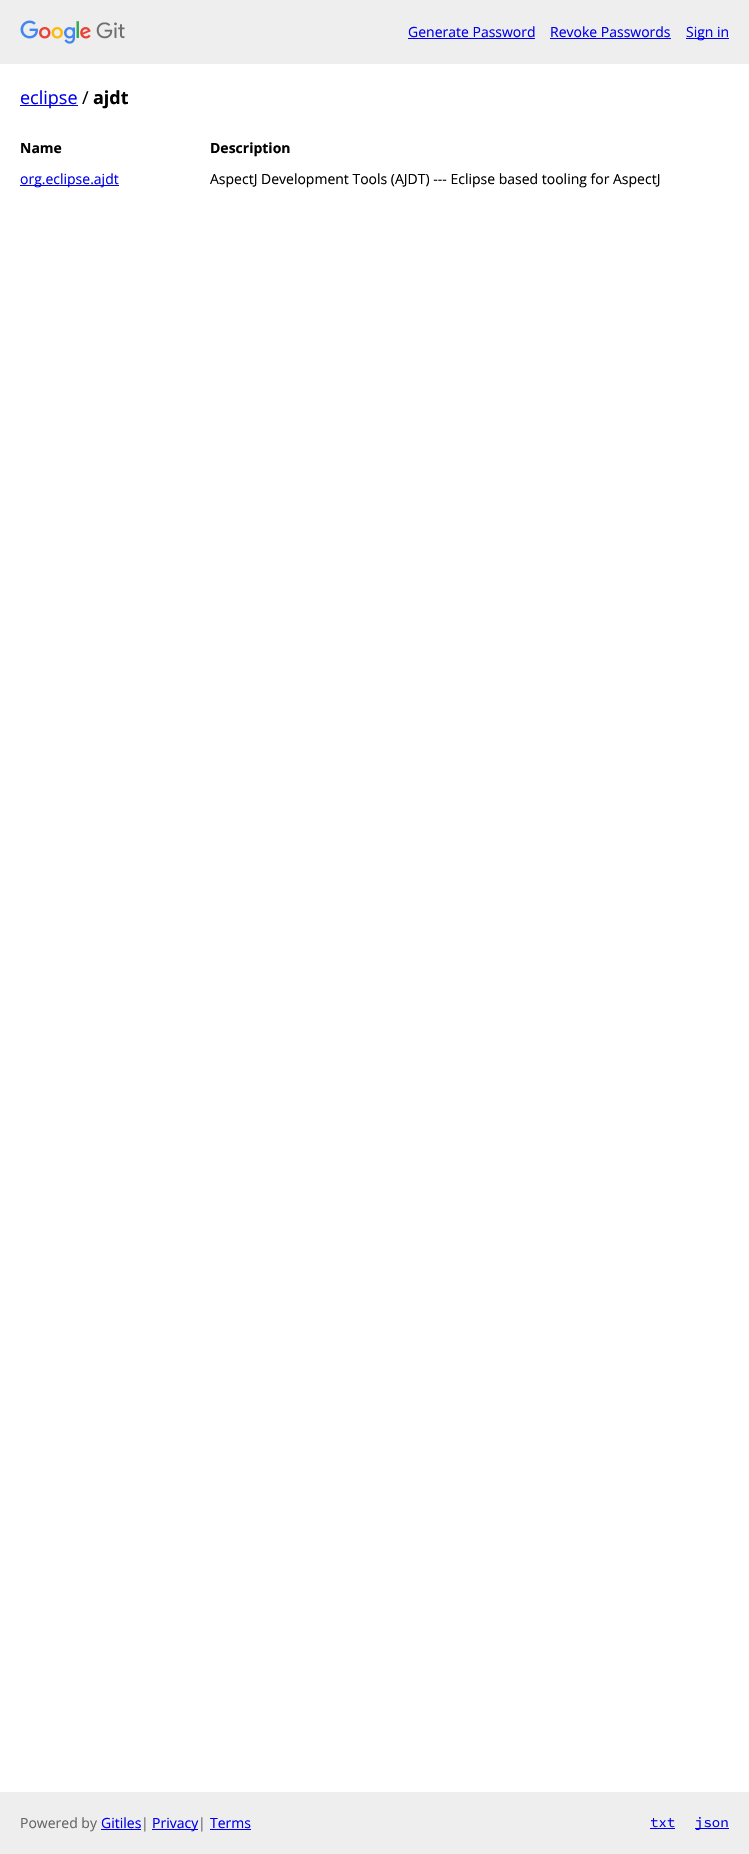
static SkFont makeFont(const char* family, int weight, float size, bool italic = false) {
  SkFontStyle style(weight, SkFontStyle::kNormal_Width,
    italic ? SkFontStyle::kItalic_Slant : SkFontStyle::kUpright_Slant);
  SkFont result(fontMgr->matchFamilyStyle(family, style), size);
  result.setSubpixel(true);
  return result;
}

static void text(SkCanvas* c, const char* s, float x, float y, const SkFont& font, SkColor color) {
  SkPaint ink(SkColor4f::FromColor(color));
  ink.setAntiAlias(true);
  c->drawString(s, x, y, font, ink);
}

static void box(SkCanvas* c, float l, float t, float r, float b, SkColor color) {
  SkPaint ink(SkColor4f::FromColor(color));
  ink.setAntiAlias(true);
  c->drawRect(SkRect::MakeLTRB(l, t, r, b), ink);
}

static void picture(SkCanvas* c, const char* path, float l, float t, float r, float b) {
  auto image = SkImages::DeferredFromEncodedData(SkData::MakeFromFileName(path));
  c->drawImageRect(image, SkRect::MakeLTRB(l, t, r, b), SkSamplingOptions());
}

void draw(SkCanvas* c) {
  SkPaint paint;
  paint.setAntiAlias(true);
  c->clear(0xffffffff);
  box(c, 0, 0, 749, 64, 0xffeeeeee);
  picture(c, "img_01.png", 20, 20, 125, 44);
  SkFont face1 = makeFont("Open Sans", 400, 14);
  text(c, "Generate Password", 408, 37, face1, 0xff0000ee);
  box(c, 408, 38, 535, 39, 0xff0000ee);
  text(c, "Revoke Passwords", 550, 37, face1, 0xff0000ee);
  box(c, 550, 38, 671, 39, 0xff0000ee);
  box(c, 686, 38, 729, 39, 0xff0000ee);
  text(c, "Sign in", 686, 37, face1, 0xff0000ee);
  box(c, 20, 105, 78, 106, 0xff0000ee);
  SkFont face2 = makeFont("Open Sans", 400, 18);
  text(c, "eclipse", 20, 104, face2, 0xff0000ee);
  text(c, "/", 82, 104, face2, 0xff000000);
  SkFont face3 = makeFont("Open Sans", 700, 18);
  text(c, "ajdt", 93, 104, face3, 0xff000000);
  SkFont face4 = makeFont("Open Sans", 700, 14);
  text(c, "Name", 20, 153, face4, 0xff000000);
  text(c, "Description", 210, 153, face4, 0xff000000);
  box(c, 20, 185, 119, 186, 0xff0000ee);
  text(c, "org.eclipse.ajdt", 20, 184, face1, 0xff0000ee);
  text(c, "AspectJ Development Tools (AJDT) --- Eclipse based tooling for AspectJ", 210, 184, face1, 0xff000000);
  box(c, 0, 1792, 749, 1854, 0xffeeeeee);
  text(c, "Powered by", 20, 1828, face1, 0xff666666);
  text(c, "Gitiles", 101, 1828, face1, 0xff0000ee);
  box(c, 101, 1829, 141, 1830, 0xff0000ee);
  text(c, "|", 141, 1828, face1, 0xff666666);
  box(c, 152, 1829, 198, 1830, 0xff0000ee);
  text(c, "Privacy", 152, 1828, face1, 0xff0000ee);
  text(c, "|", 198, 1828, face1, 0xff666666);
  text(c, "Terms", 210, 1828, face1, 0xff0000ee);
  box(c, 210, 1829, 251, 1830, 0xff0000ee);
  SkFont face5 = makeFont("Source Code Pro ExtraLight", 200, 14);
  text(c, "txt", 650, 1827, face5, 0xff0000ee);
  box(c, 650, 1828, 675, 1829, 0xff0000ee);
  box(c, 695, 1828, 729, 1829, 0xff0000ee);
  text(c, "json", 695, 1827, face5, 0xff0000ee);
}
